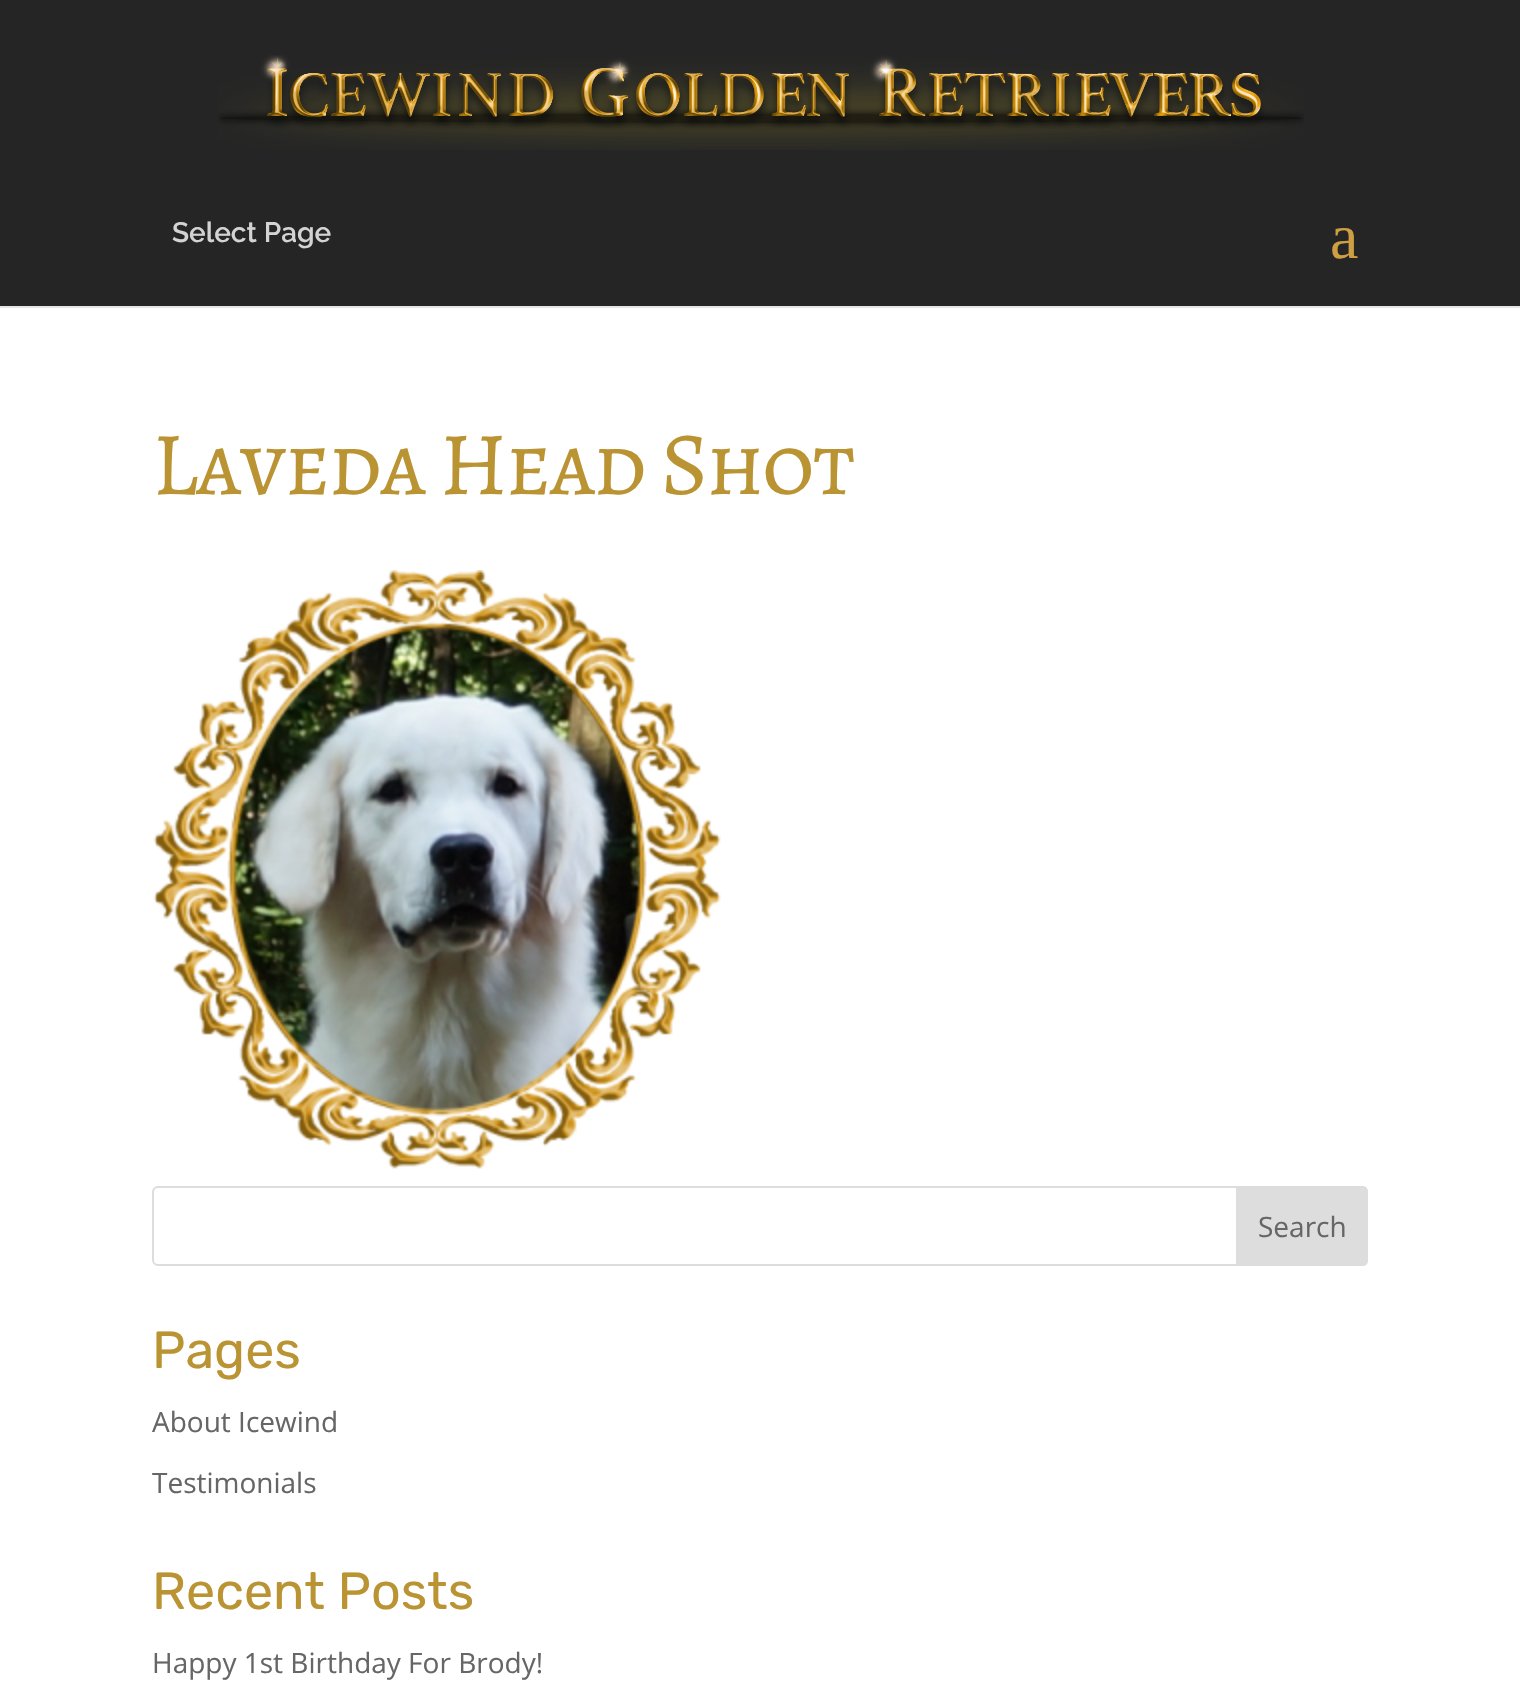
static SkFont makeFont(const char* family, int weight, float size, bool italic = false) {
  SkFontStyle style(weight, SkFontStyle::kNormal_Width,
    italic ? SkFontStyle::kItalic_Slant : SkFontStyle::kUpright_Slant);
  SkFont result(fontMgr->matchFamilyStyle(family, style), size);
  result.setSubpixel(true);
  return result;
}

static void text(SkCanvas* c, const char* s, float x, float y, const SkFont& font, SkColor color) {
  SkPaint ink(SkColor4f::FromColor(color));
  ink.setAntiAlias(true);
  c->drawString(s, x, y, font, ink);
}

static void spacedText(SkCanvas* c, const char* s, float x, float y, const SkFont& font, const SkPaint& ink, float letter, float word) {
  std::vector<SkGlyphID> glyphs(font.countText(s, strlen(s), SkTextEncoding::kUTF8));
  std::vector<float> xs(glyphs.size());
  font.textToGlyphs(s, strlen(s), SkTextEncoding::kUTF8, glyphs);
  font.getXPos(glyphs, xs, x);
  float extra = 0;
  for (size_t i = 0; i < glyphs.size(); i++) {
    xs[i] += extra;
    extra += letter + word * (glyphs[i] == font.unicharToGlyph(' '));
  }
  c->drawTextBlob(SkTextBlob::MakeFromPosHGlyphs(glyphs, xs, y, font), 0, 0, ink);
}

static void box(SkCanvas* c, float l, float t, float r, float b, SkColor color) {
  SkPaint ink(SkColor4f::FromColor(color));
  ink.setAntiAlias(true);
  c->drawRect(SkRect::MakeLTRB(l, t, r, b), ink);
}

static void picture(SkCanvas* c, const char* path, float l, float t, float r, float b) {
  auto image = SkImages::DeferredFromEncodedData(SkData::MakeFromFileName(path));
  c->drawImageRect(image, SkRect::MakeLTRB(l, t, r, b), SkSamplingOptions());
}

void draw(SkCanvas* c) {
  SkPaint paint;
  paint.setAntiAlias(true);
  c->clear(0xffffffff);
  box(c, 0, 306, 1520, 308, 0xffe6e6e6);
  box(c, 0, 0, 1520, 306, 0xff252525);
  picture(c, "img_01.png", 218, 55, 1304, 150);
  SkFont face1 = makeFont("Raleway", 600, 28);
  text(c, "Select Page", 172, 242, face1, 0xffd3d3d3);
  SkFont face2 = makeFont("Liberation Serif", 400, 64);
  text(c, "a", 1330, 258, face2, 0xffce9f42);
  SkFont face3 = makeFont("Alegreya SC", 400, 90);
  paint.setColor(0xffba9332);
  spacedText(c, "Laveda Head Shot", 152, 494, face3, paint, -2, 0);
  picture(c, "img_02.png", 153, 570, 721, 1169);
  paint.setStyle(SkPaint::kStroke_Style);
  paint.setStrokeWidth(2);
  paint.setColor(0xffdddddd);
  c->drawRoundRect(SkRect::MakeLTRB(153, 1187, 1367, 1265), 5, 5, paint);
  paint.setStyle(SkPaint::kFill_Style);
  c->drawPath(SkPathBuilder().moveTo(1237, 1187).lineTo(1362, 1187).cubicTo(1365, 1187, 1367, 1189, 1367, 1192).lineTo(1367, 1260).cubicTo(1367, 1263, 1365, 1265, 1362, 1265).lineTo(1237, 1265).close().detach(), paint);
  paint.setStyle(SkPaint::kStroke_Style);
  c->drawPath(SkPathBuilder().moveTo(1237, 1187).lineTo(1362, 1187).cubicTo(1365, 1187, 1367, 1189, 1367, 1192).lineTo(1367, 1260).cubicTo(1367, 1263, 1365, 1265, 1362, 1265).lineTo(1237, 1265).close().detach(), paint);
  SkFont face4 = makeFont("Open Sans", 400, 28);
  text(c, "Search", 1258, 1237, face4, 0xff666666);
  SkFont face5 = makeFont("Rubik", 400, 52);
  text(c, "Pages", 152, 1368, face5, 0xffba9332);
  text(c, "About Icewind", 152, 1432, face4, 0xff666666);
  text(c, "Testimonials", 152, 1493, face4, 0xff666666);
  text(c, "Recent Posts", 152, 1609, face5, 0xffba9332);
  text(c, "Happy 1st Birthday For Brody!", 152, 1673, face4, 0xff666666);
}
